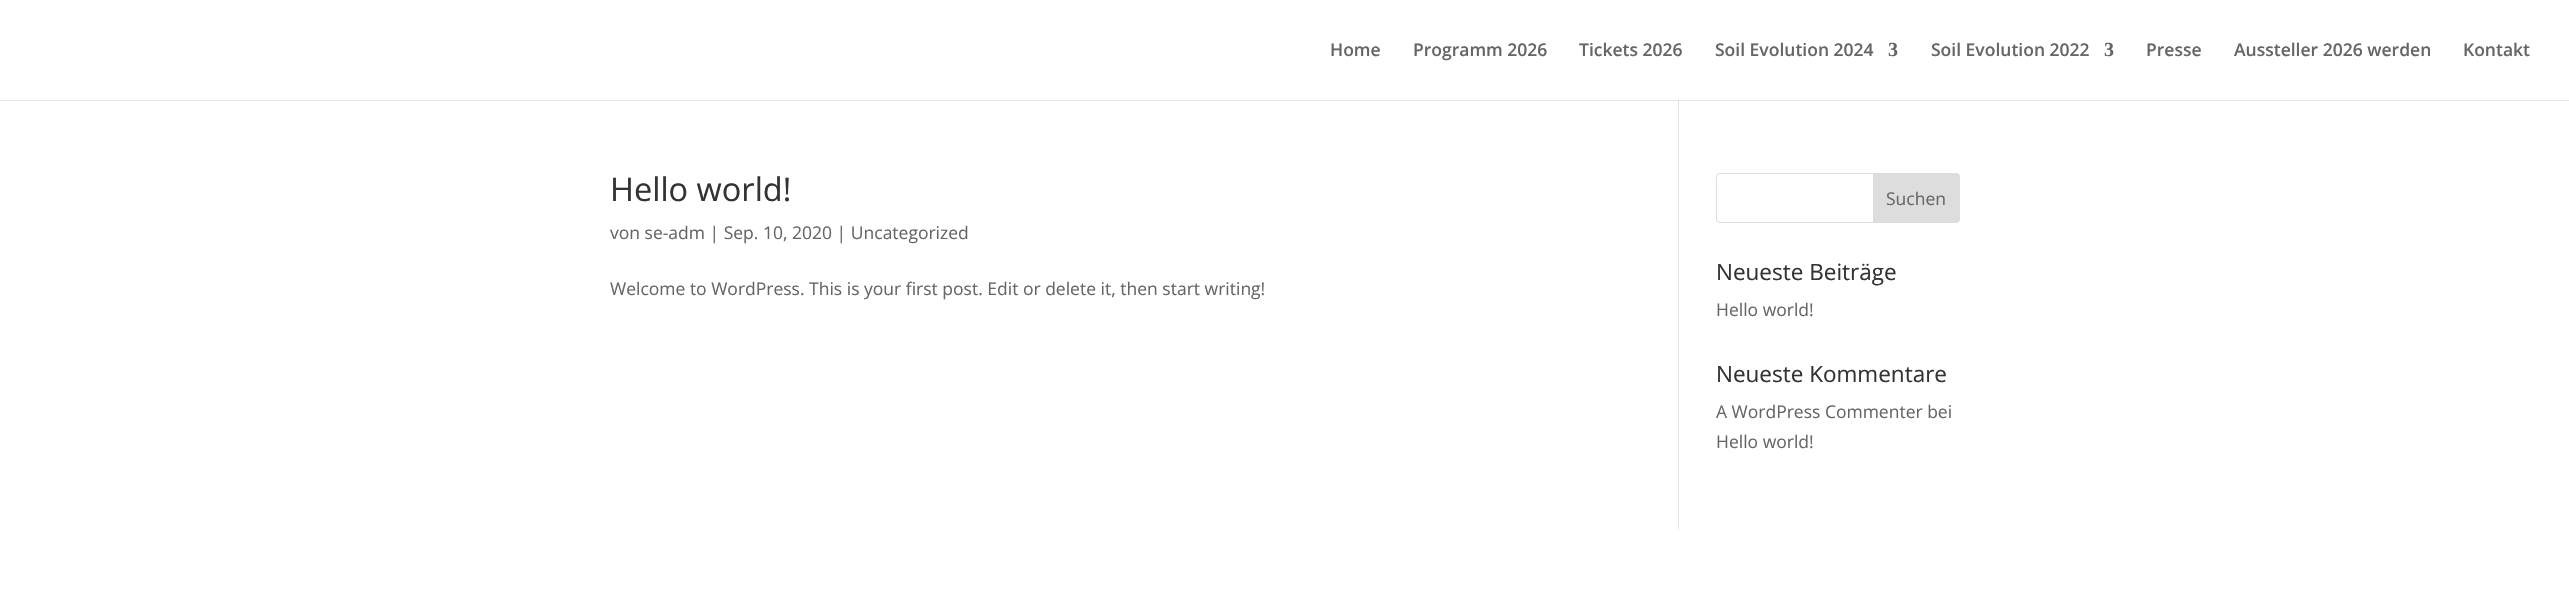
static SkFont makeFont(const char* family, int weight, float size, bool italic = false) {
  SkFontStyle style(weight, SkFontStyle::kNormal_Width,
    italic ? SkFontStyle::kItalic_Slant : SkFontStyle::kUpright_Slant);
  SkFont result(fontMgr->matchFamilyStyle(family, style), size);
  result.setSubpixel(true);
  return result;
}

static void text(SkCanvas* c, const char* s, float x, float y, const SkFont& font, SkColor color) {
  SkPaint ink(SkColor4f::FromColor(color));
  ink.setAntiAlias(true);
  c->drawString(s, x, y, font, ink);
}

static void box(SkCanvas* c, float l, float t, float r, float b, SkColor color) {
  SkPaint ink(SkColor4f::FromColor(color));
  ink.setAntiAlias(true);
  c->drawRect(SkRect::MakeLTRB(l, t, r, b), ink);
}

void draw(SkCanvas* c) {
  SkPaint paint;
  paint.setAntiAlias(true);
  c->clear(0xffffffff);
  box(c, 0, 100, 2569, 101, 0xffe6e6e6);
  SkFont face1 = makeFont("Open Sans", 600, 17.5f);
  text(c, "Home", 1330, 56, face1, 0xff666666);
  text(c, "Programm 2026", 1413, 56, face1, 0xff666666);
  text(c, "Tickets 2026", 1579, 56, face1, 0xff666666);
  text(c, "Soil Evolution 2024", 1715, 56, face1, 0xff666666);
  SkFont face2 = makeFont("Liberation Serif", 700, 20);
  text(c, "3", 1888, 56, face2, 0xff666666);
  text(c, "Soil Evolution 2022", 1931, 56, face1, 0xff666666);
  text(c, "3", 2104, 56, face2, 0xff666666);
  text(c, "Presse", 2146, 56, face1, 0xff666666);
  text(c, "Aussteller 2026 werden", 2234, 56, face1, 0xff666666);
  text(c, "Kontakt", 2463, 56, face1, 0xff666666);
  box(c, 1678, 100, 1679, 529, 0xffe2e2e2);
  box(c, 1678, 100, 1679, 101, 0xffcbcbcb);
  SkFont face3 = makeFont("Open Sans", 400, 32.5f);
  text(c, "Hello world!", 610, 201, face3, 0xff333333);
  SkFont face4 = makeFont("Open Sans", 400, 17.5f);
  text(c, "von se-adm | Sep. 10, 2020 | Uncategorized", 610, 239, face4, 0xff666666);
  text(c, "Welcome to WordPress. This is your first post. Edit or delete it, then start writing!", 610, 295, face4, 0xff666666);
  paint.setStyle(SkPaint::kStroke_Style);
  paint.setStrokeWidth(1);
  paint.setColor(0xffdddddd);
  c->drawRoundRect(SkRect::MakeLTRB(1716.5f, 173.5f, 1959.5f, 222.5f), 3.5f, 3.5f, paint);
  paint.setStyle(SkPaint::kFill_Style);
  c->drawPath(SkPathBuilder().moveTo(1873.5f, 173.5f).lineTo(1956, 173.5f).cubicTo(1958, 173.5f, 1959.5f, 175, 1959.5f, 177).lineTo(1959.5f, 219).cubicTo(1959.5f, 221, 1958, 222.5f, 1956, 222.5f).lineTo(1873.5f, 222.5f).close().detach(), paint);
  paint.setStyle(SkPaint::kStroke_Style);
  c->drawPath(SkPathBuilder().moveTo(1873.5f, 173.5f).lineTo(1956, 173.5f).cubicTo(1958, 173.5f, 1959.5f, 175, 1959.5f, 177).lineTo(1959.5f, 219).cubicTo(1959.5f, 221, 1958, 222.5f, 1956, 222.5f).lineTo(1873.5f, 222.5f).close().detach(), paint);
  text(c, "Suchen", 1886, 205, face4, 0xff666666);
  SkFont face5 = makeFont("Open Sans", 400, 22.5f);
  text(c, "Neueste Beiträge", 1716, 280, face5, 0xff333333);
  text(c, "Hello world!", 1716, 316, face4, 0xff666666);
  text(c, "Neueste Kommentare", 1716, 382, face5, 0xff333333);
  text(c, "A WordPress Commenter bei", 1716, 418, face4, 0xff666666);
  text(c, "Hello world!", 1716, 448, face4, 0xff666666);
}
